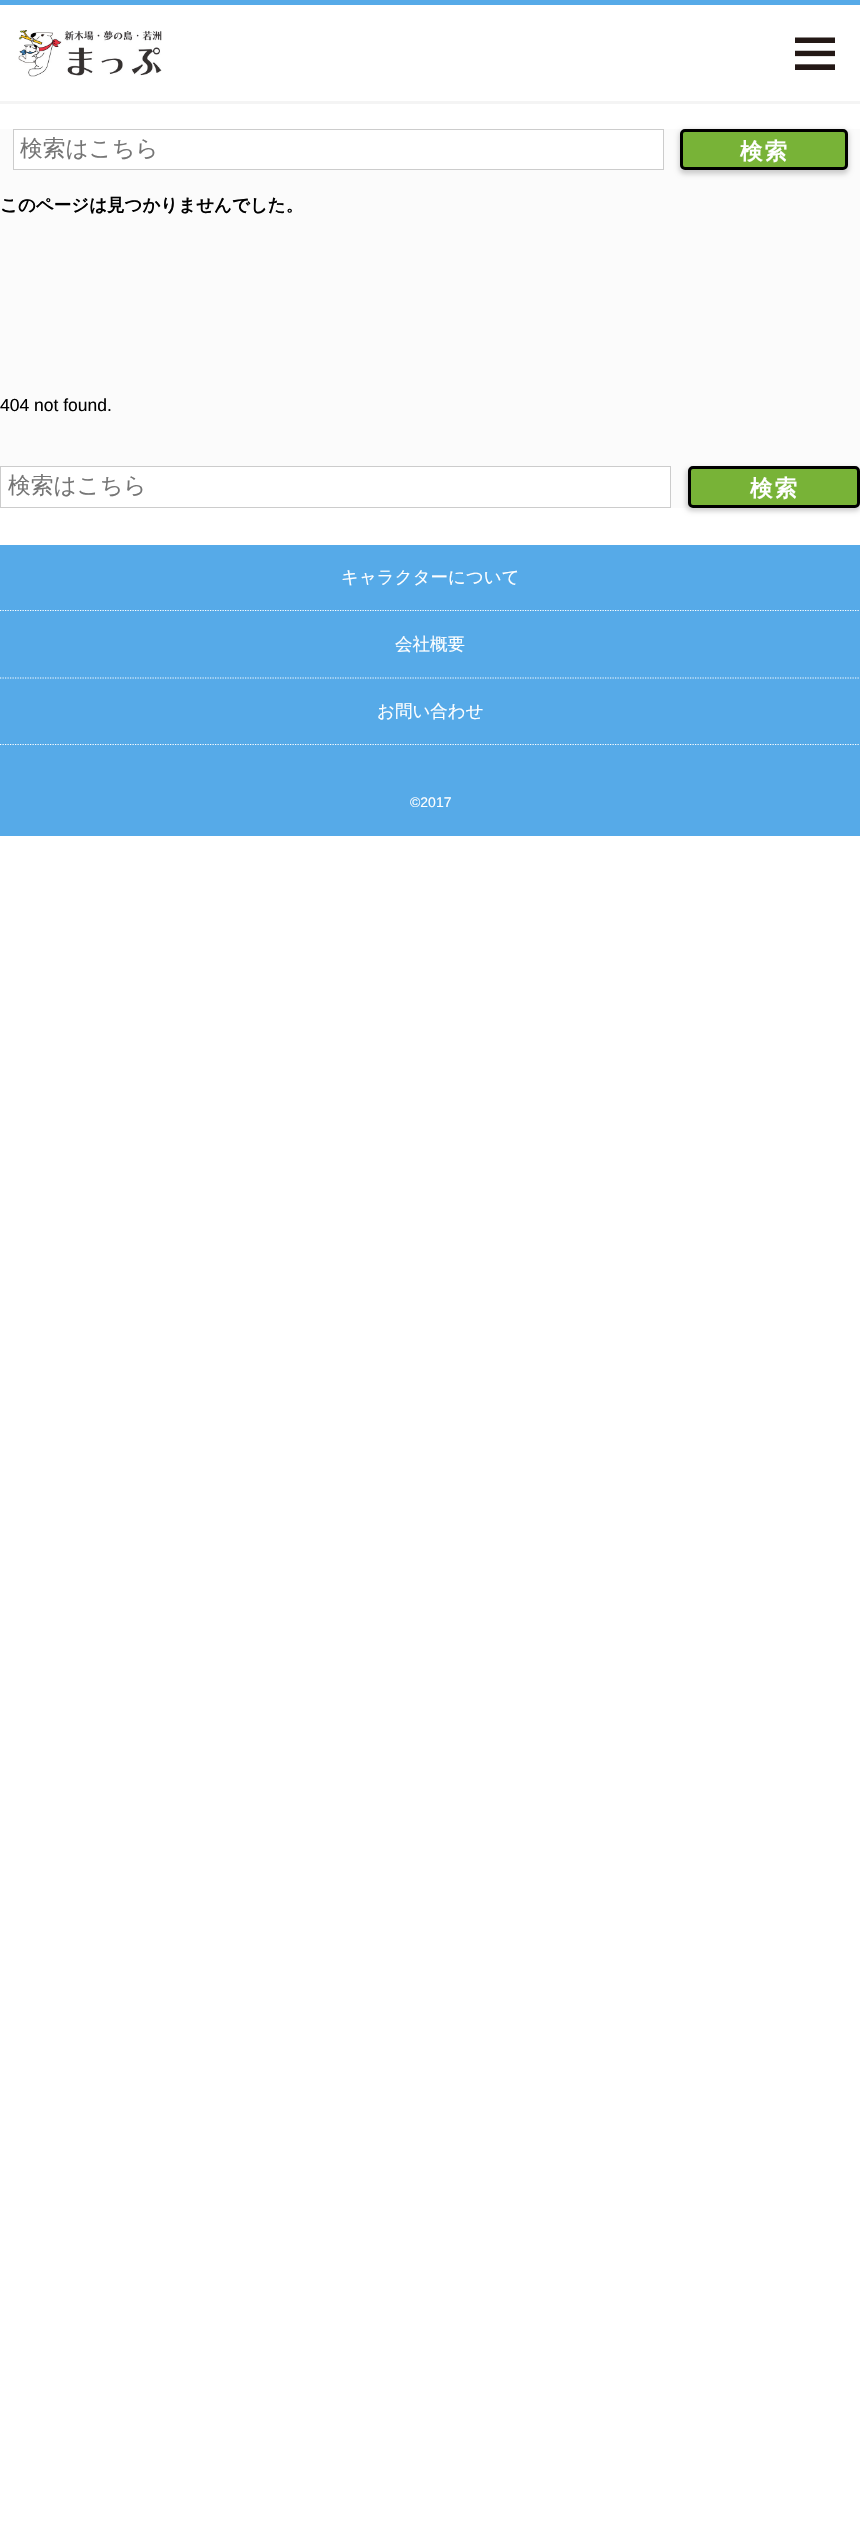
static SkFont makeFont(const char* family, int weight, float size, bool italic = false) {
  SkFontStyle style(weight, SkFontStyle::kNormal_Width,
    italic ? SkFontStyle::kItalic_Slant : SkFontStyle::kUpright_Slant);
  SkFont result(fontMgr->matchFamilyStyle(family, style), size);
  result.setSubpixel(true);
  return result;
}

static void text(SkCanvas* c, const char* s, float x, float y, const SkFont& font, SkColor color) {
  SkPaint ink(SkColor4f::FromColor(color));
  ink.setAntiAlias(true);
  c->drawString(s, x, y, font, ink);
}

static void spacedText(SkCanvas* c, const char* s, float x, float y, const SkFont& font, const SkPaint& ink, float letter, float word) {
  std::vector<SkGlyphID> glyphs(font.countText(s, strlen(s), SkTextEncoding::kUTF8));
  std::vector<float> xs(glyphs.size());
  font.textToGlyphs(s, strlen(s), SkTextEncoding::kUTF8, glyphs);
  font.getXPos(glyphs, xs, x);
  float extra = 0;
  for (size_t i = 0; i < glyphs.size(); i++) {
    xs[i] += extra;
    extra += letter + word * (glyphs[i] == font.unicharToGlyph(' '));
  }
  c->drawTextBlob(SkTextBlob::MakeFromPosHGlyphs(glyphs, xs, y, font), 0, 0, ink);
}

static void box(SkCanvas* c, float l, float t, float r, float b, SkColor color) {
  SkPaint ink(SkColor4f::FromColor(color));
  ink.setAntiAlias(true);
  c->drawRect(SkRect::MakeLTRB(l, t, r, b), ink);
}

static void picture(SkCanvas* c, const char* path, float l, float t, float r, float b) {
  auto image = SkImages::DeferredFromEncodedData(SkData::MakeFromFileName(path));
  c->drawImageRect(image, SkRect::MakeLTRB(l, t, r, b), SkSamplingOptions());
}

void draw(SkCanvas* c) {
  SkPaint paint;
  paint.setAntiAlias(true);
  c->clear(0xffffffff);
  box(c, 0, 0, 860, 5, 0xff56aae8);
  box(c, 0, 101, 860, 104, 0xfff4f4f4);
  picture(c, "img_01.png", 18, 30, 162, 77);
  picture(c, "img_02.png", 795, 37, 835, 70);
  box(c, 0, 129, 860, 508, 0xfffbfbfb);
  paint.setColor(0xffffffff);
  c->drawRect(SkRect::MakeLTRB(13.5f, 129.5f, 663.5f, 169.5f), paint);
  paint.setStyle(SkPaint::kStroke_Style);
  paint.setStrokeWidth(1);
  paint.setColor(0xffcccccc);
  c->drawRect(SkRect::MakeLTRB(13.5f, 129.5f, 663.5f, 169.5f), paint);
  SkFont face1 = makeFont("WenQuanYi Zen Hei", 500, 22.75f);
  text(c, "検索はこちら", 20, 156, face1, 0xff757575);
  paint.setStyle(SkPaint::kFill_Style);
  paint.setMaskFilter(SkMaskFilter::MakeBlur(kNormal_SkBlurStyle, 2.5f));
  c->drawRoundRect(SkRect::MakeLTRB(679, 130, 849, 174), 6, 6, paint);
  paint.setMaskFilter(nullptr);
  paint.setColor(0xff78b337);
  c->drawRoundRect(SkRect::MakeLTRB(681.5f, 130.5f, 846.5f, 168.5f), 3.5f, 3.5f, paint);
  paint.setStyle(SkPaint::kStroke_Style);
  paint.setStrokeWidth(3);
  paint.setColor(0xff000000);
  c->drawRoundRect(SkRect::MakeLTRB(681.5f, 130.5f, 846.5f, 168.5f), 3.5f, 3.5f, paint);
  SkFont face2 = makeFont("WenQuanYi Zen Hei", 700, 22.5f);
  paint.setStyle(SkPaint::kFill_Style);
  paint.setColor(0xffffffff);
  spacedText(c, "検索", 740, 159, face2, paint, 2, 0);
  SkFont face3 = makeFont("WenQuanYi Zen Hei", 700, 17.5f);
  text(c, "このページは見つかりませんでした。", 0, 211, face3, 0xff000000);
  SkFont face4 = makeFont("Liberation Sans", 400, 17.5f);
  text(c, "404 not found.", 0, 411, face4, 0xff000000);
  c->drawRect(SkRect::MakeLTRB(0.5f, 466.5f, 670.5f, 507.5f), paint);
  paint.setStyle(SkPaint::kStroke_Style);
  paint.setStrokeWidth(1);
  paint.setColor(0xffcccccc);
  c->drawRect(SkRect::MakeLTRB(0.5f, 466.5f, 670.5f, 507.5f), paint);
  text(c, "検索はこちら", 8, 493, face1, 0xff757575);
  paint.setStyle(SkPaint::kFill_Style);
  paint.setMaskFilter(SkMaskFilter::MakeBlur(kNormal_SkBlurStyle, 2.5f));
  c->drawRoundRect(SkRect::MakeLTRB(686, 468, 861, 511), 6, 6, paint);
  paint.setMaskFilter(nullptr);
  paint.setColor(0xff78b337);
  c->drawRoundRect(SkRect::MakeLTRB(689.5f, 467.5f, 858.5f, 506.5f), 3.5f, 3.5f, paint);
  paint.setStyle(SkPaint::kStroke_Style);
  paint.setStrokeWidth(3);
  paint.setColor(0xff000000);
  c->drawRoundRect(SkRect::MakeLTRB(689.5f, 467.5f, 858.5f, 506.5f), 3.5f, 3.5f, paint);
  paint.setStyle(SkPaint::kFill_Style);
  paint.setColor(0xffffffff);
  spacedText(c, "検索", 750, 496, face2, paint, 2, 0);
  box(c, 0, 545, 860, 836, 0xff56aae8);
  paint.setStyle(SkPaint::kStroke_Style);
  paint.setStrokeWidth(1.2f);
  paint.setPathEffect(SkDashPathEffect::Make({{1.25f, 1.25f}}, 0));
  c->drawPath(SkPathBuilder().moveTo(0, 610.5f).lineTo(860, 610.5f).detach(), paint);
  paint.setPathEffect(nullptr);
  SkFont face5 = makeFont("WenQuanYi Zen Hei", 500, 17.5f);
  text(c, "キャラクターについて", 341, 583, face5, 0xffffffff);
  paint.setPathEffect(SkDashPathEffect::Make({{1.25f, 1.25f}}, 0));
  c->drawPath(SkPathBuilder().moveTo(0, 678).lineTo(860, 678).detach(), paint);
  paint.setPathEffect(nullptr);
  text(c, "会社概要", 395, 650, face5, 0xffffffff);
  paint.setPathEffect(SkDashPathEffect::Make({{1.25f, 1.25f}}, 0));
  c->drawPath(SkPathBuilder().moveTo(0, 744.5f).lineTo(860, 744.5f).detach(), paint);
  paint.setPathEffect(nullptr);
  text(c, "お問い合わせ", 377, 717, face5, 0xffffffff);
  SkFont face6 = makeFont("Liberation Sans", 400, 14);
  text(c, "©2017", 410, 807, face6, 0xffffffff);
}
